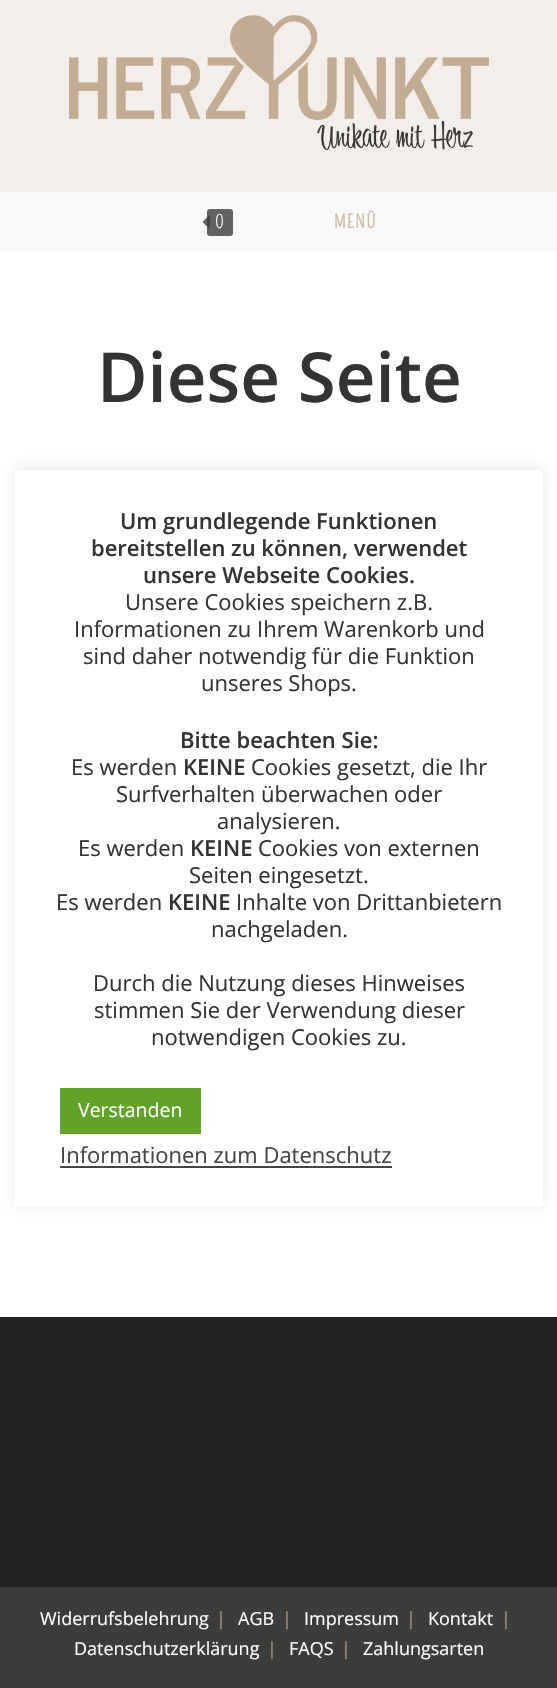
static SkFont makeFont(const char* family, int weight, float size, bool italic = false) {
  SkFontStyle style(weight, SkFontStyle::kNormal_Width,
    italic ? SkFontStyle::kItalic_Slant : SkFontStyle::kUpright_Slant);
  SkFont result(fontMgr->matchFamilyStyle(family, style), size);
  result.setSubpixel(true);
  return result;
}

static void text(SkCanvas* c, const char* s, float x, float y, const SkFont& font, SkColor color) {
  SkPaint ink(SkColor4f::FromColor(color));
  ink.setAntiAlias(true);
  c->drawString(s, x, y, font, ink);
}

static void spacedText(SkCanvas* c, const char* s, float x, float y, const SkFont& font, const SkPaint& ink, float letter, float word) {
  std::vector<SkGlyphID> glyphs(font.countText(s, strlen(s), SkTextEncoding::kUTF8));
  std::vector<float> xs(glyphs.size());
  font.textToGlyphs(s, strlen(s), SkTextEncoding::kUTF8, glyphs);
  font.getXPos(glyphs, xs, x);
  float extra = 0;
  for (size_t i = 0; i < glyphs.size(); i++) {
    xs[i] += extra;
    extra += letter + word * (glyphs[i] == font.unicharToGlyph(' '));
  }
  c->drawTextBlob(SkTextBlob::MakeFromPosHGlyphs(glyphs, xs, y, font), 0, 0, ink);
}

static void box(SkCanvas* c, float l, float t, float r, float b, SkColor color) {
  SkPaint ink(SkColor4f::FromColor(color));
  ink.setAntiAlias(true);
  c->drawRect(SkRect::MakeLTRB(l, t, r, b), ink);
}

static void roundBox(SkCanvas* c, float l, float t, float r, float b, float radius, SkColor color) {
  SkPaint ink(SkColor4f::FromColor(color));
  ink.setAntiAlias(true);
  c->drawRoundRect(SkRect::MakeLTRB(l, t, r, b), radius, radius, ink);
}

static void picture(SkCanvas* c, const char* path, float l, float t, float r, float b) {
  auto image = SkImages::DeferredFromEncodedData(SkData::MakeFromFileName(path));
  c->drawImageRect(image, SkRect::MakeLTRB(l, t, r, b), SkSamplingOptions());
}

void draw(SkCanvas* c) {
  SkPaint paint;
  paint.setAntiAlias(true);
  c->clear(0xffffffff);
  box(c, 0, 0, 557, 192, 0xfff3eee9);
  picture(c, "img_01.png", 69, 15, 489, 151);
  box(c, 0, 192, 557, 252, 0xfff9f9f9);
  roundBox(c, 207, 209, 233, 236, 3, 0xff626261);
  paint.setColor(0xcc3c3c3b);
  c->drawPath(SkPathBuilder().moveTo(210, 214.5f).lineTo(210, 229.5f).lineTo(202.5f, 222).close().detach(), paint);
  SkFont face1 = makeFont("Pompiere", 400, 18);
  paint.setColor(0xffffffff);
  spacedText(c, "0", 215, 228, face1, paint, 1.5f, 0);
  SkFont face2 = makeFont("Pompiere", 700, 18);
  paint.setColor(0xffcebba9);
  spacedText(c, "MENÜ", 334, 228, face2, paint, 1.5f, 0);
  SkFont face3 = makeFont("Open Sans", 600, 69);
  text(c, "Diese Seite", 97, 402, face3, 0xff333333);
  box(c, 0, 1317, 557, 1587, 0xff222222);
  box(c, 0, 1587, 557, 1688, 0xff3c3c3b);
  SkFont face4 = makeFont("Open Sans", 400, 18);
  text(c, "Widerrufsbelehrung", 40, 1625, face4, 0xffffffff);
  text(c, "|", 216, 1625, face4, 0xffa59380);
  text(c, "AGB", 238, 1625, face4, 0xffffffff);
  text(c, "|", 282, 1625, face4, 0xffa59380);
  text(c, "Impressum", 304, 1625, face4, 0xffffffff);
  text(c, "|", 406, 1625, face4, 0xffa59380);
  text(c, "Kontakt", 428, 1625, face4, 0xffffffff);
  text(c, "|", 501, 1625, face4, 0xffa59380);
  text(c, "Datenschutzerklärung", 74, 1655, face4, 0xffffffff);
  text(c, "|", 267, 1655, face4, 0xffa59380);
  text(c, "FAQS", 289, 1655, face4, 0xffffffff);
  text(c, "|", 341, 1655, face4, 0xffa59380);
  text(c, "Zahlungsarten", 363, 1655, face4, 0xffffffff);
  paint.setColor(0x4dacabab);
  paint.setMaskFilter(SkMaskFilter::MakeBlur(kNormal_SkBlurStyle, 7.5f));
  c->drawRoundRect(SkRect::MakeLTRB(15, 468, 543, 1205), 3, 3, paint);
  paint.setMaskFilter(nullptr);
  roundBox(c, 15, 470, 543, 1206, 3, 0xffffffff);
  SkFont face5 = makeFont("Open Sans", 600, 22);
  text(c, "Um grundlegende Funktionen", 120, 529, face5, 0xff333333);
  text(c, "bereitstellen zu können, verwendet", 91, 556, face5, 0xff333333);
  text(c, "unsere Webseite Cookies.", 143, 583, face5, 0xff333333);
  SkFont face6 = makeFont("Open Sans", 400, 22);
  text(c, "Unsere Cookies speichern z.B.", 125, 610, face6, 0xff333333);
  text(c, "Informationen zu Ihrem Warenkorb und", 74, 637, face6, 0xff333333);
  text(c, "sind daher notwendig für die Funktion", 83, 664, face6, 0xff333333);
  text(c, "unseres Shops.", 201, 691, face6, 0xff333333);
  text(c, "Bitte beachten Sie:", 180, 748, face5, 0xff333333);
  text(c, "Es werden", 71, 775, face6, 0xff333333);
  text(c, "KEINE", 183, 775, face5, 0xff333333);
  text(c, "Cookies gesetzt, die Ihr", 251, 775, face6, 0xff333333);
  text(c, "Surfverhalten überwachen oder", 116, 802, face6, 0xff333333);
  text(c, "analysieren.", 217, 829, face6, 0xff333333);
  text(c, "Es werden", 78, 856, face6, 0xff333333);
  text(c, "KEINE", 190, 856, face5, 0xff333333);
  text(c, "Cookies von externen", 258, 856, face6, 0xff333333);
  text(c, "Seiten eingesetzt.", 189, 883, face6, 0xff333333);
  text(c, "Es werden", 56, 910, face6, 0xff333333);
  text(c, "KEINE", 168, 910, face5, 0xff333333);
  text(c, "Inhalte von Drittanbietern", 236, 910, face6, 0xff333333);
  text(c, "nachgeladen.", 211, 937, face6, 0xff333333);
  text(c, "Durch die Nutzung dieses Hinweises", 93, 991, face6, 0xff333333);
  text(c, "stimmen Sie der Verwendung dieser", 94, 1018, face6, 0xff333333);
  text(c, "notwendigen Cookies zu.", 151, 1045, face6, 0xff333333);
  box(c, 60, 1088, 201, 1134, 0xff61a229);
  SkFont face7 = makeFont("Open Sans", 400, 19.5f);
  text(c, "Verstanden", 78, 1117, face7, 0xffffffff);
  text(c, "Informationen zum Datenschutz", 60, 1163, face6, 0xff444444);
  box(c, 60, 1166, 392, 1168, 0xff444444);
}
